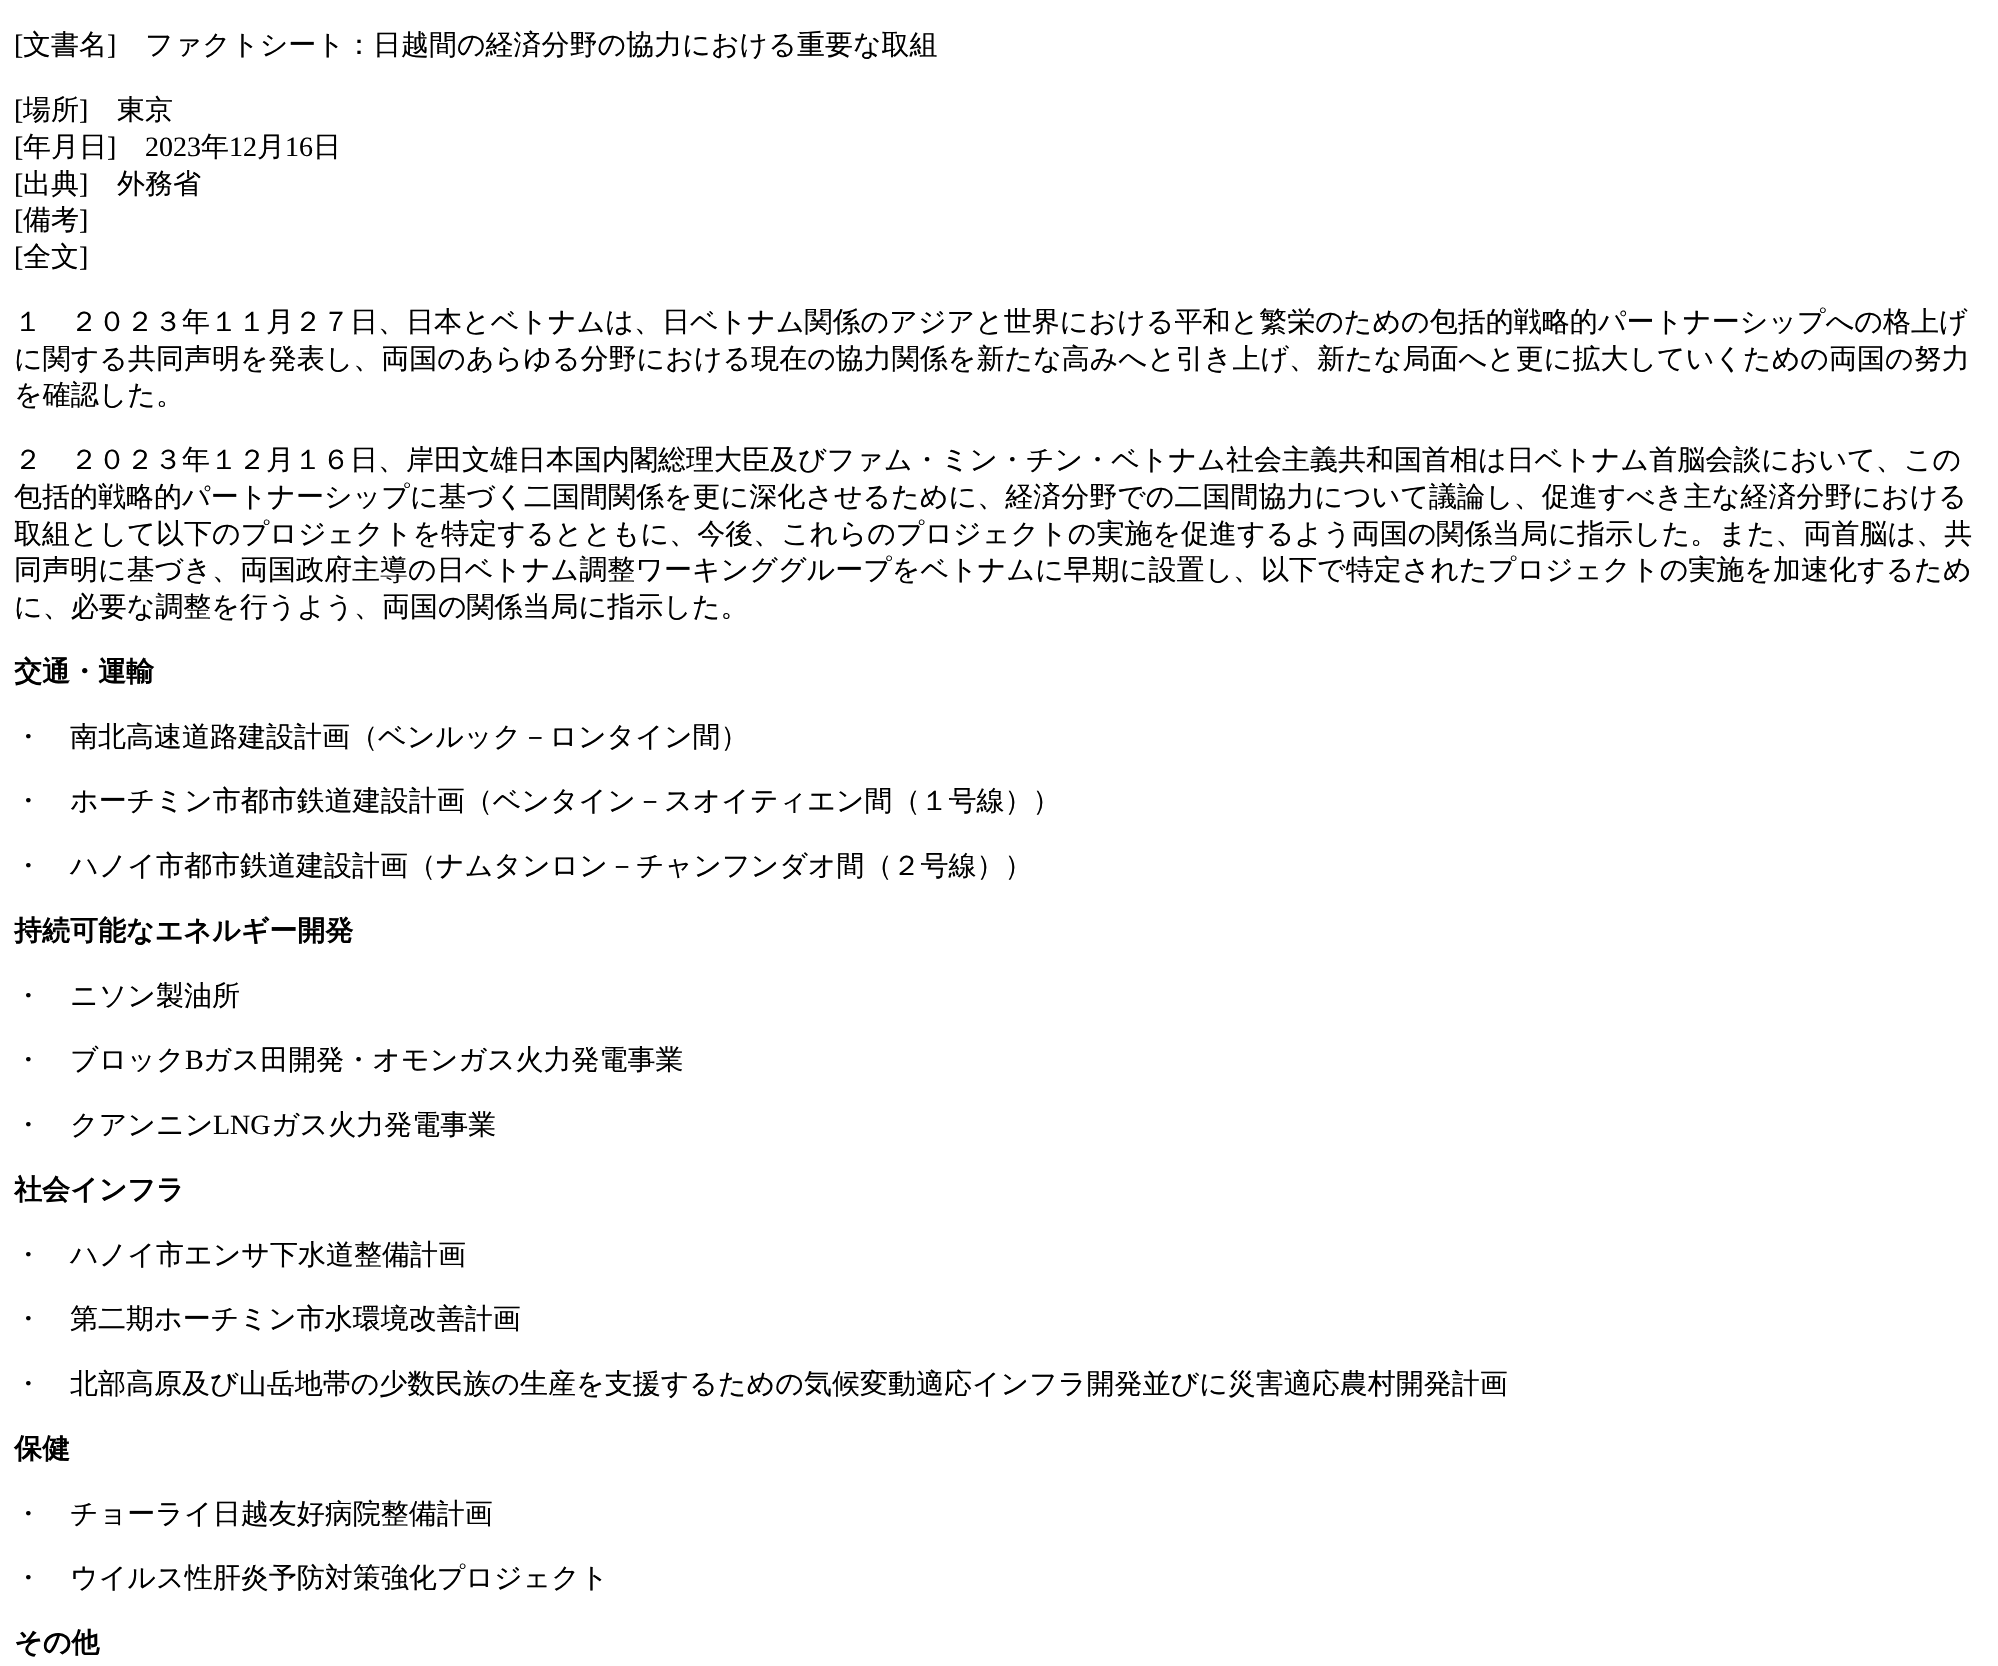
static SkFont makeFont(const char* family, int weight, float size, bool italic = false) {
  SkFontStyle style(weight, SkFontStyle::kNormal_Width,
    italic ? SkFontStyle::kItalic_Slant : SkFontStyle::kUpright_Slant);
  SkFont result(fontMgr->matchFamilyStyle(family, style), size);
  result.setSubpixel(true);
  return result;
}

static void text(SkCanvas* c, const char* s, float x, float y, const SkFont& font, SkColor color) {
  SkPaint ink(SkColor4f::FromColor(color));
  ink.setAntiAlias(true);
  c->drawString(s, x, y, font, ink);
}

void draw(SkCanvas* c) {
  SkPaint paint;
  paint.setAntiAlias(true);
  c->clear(0xffffffff);
  SkFont face1 = makeFont("Liberation Serif", 400, 28);
  text(c, "[", 14, 54, face1, 0xff000000);
  SkFont face2 = makeFont("WenQuanYi Zen Hei", 500, 28);
  text(c, "文書名", 23, 54, face2, 0xff000000);
  text(c, "]", 107, 54, face1, 0xff000000);
  text(c, "ファクトシート：日越間の経済分野の協力における重要な取組", 145, 54, face2, 0xff000000);
  text(c, "[", 14, 119, face1, 0xff000000);
  text(c, "場所", 23, 119, face2, 0xff000000);
  text(c, "]", 79, 119, face1, 0xff000000);
  text(c, "東京", 117, 119, face2, 0xff000000);
  text(c, "[", 14, 156, face1, 0xff000000);
  text(c, "年月日", 23, 156, face2, 0xff000000);
  text(c, "]", 107, 156, face1, 0xff000000);
  text(c, "2023", 145, 156, face1, 0xff000000);
  text(c, "年", 201, 156, face2, 0xff000000);
  text(c, "12", 229, 156, face1, 0xff000000);
  text(c, "月", 257, 156, face2, 0xff000000);
  text(c, "16", 285, 156, face1, 0xff000000);
  text(c, "日", 313, 156, face2, 0xff000000);
  text(c, "[", 14, 193, face1, 0xff000000);
  text(c, "出典", 23, 193, face2, 0xff000000);
  text(c, "]", 79, 193, face1, 0xff000000);
  text(c, "外務省", 117, 193, face2, 0xff000000);
  text(c, "[", 14, 229, face1, 0xff000000);
  text(c, "備考", 23, 229, face2, 0xff000000);
  text(c, "]", 79, 229, face1, 0xff000000);
  text(c, "[", 14, 266, face1, 0xff000000);
  text(c, "全文", 23, 266, face2, 0xff000000);
  text(c, "]", 79, 266, face1, 0xff000000);
  text(c, "１　２０２３年１１月２７日、日本とベトナムは、日ベトナム関係のアジアと世界における平和と繁栄のための包括的戦略的パートナーシップへの格上げ", 14, 331, face2, 0xff000000);
  text(c, "に関する共同声明を発表し、両国のあらゆる分野における現在の協力関係を新たな高みへと引き上げ、新たな局面へと更に拡大していくための両国の努力", 14, 368, face2, 0xff000000);
  text(c, "を確認した。", 14, 404, face2, 0xff000000);
  text(c, "２　２０２３年１２月１６日、岸田文雄日本国内閣総理大臣及びファム・ミン・チン・ベトナム社会主義共和国首相は日ベトナム首脳会談において、この", 14, 469, face2, 0xff000000);
  text(c, "包括的戦略的パートナーシップに基づく二国間関係を更に深化させるために、経済分野での二国間協力について議論し、促進すべき主な経済分野における", 14, 506, face2, 0xff000000);
  text(c, "取組として以下のプロジェクトを特定するとともに、今後、これらのプロジェクトの実施を促進するよう両国の関係当局に指示した。また、両首脳は、共", 14, 543, face2, 0xff000000);
  text(c, "同声明に基づき、両国政府主導の日ベトナム調整ワーキンググループをベトナムに早期に設置し、以下で特定されたプロジェクトの実施を加速化するため", 14, 579, face2, 0xff000000);
  text(c, "に、必要な調整を行うよう、両国の関係当局に指示した。", 14, 616, face2, 0xff000000);
  SkFont face3 = makeFont("WenQuanYi Zen Hei", 700, 28);
  text(c, "交通・運輸", 14, 681, face3, 0xff000000);
  text(c, "・　南北高速道路建設計画（ベンルック－ロンタイン間）", 14, 746, face2, 0xff000000);
  text(c, "・　ホーチミン市都市鉄道建設計画（ベンタイン－スオイティエン間（１号線））", 14, 810, face2, 0xff000000);
  text(c, "・　ハノイ市都市鉄道建設計画（ナムタンロン－チャンフンダオ間（２号線））", 14, 875, face2, 0xff000000);
  text(c, "持続可能なエネルギー開発", 14, 940, face3, 0xff000000);
  text(c, "・　ニソン製油所", 14, 1005, face2, 0xff000000);
  text(c, "・　ブロック", 14, 1069, face2, 0xff000000);
  text(c, "B", 185, 1069, face1, 0xff000000);
  text(c, "ガス田開発・オモンガス火力発電事業", 203, 1069, face2, 0xff000000);
  text(c, "・　クアンニン", 14, 1134, face2, 0xff000000);
  text(c, "LNG", 213, 1134, face1, 0xff000000);
  text(c, "ガス火力発電事業", 271, 1134, face2, 0xff000000);
  text(c, "社会インフラ", 14, 1199, face3, 0xff000000);
  text(c, "・　ハノイ市エンサ下水道整備計画", 14, 1264, face2, 0xff000000);
  text(c, "・　第二期ホーチミン市水環境改善計画", 14, 1328, face2, 0xff000000);
  text(c, "・　北部高原及び山岳地帯の少数民族の生産を支援するための気候変動適応インフラ開発並びに災害適応農村開発計画", 14, 1393, face2, 0xff000000);
  text(c, "保健", 14, 1458, face3, 0xff000000);
  text(c, "・　チョーライ日越友好病院整備計画", 14, 1523, face2, 0xff000000);
  text(c, "・　ウイルス性肝炎予防対策強化プロジェクト", 14, 1587, face2, 0xff000000);
  text(c, "その他", 14, 1652, face3, 0xff000000);
}
